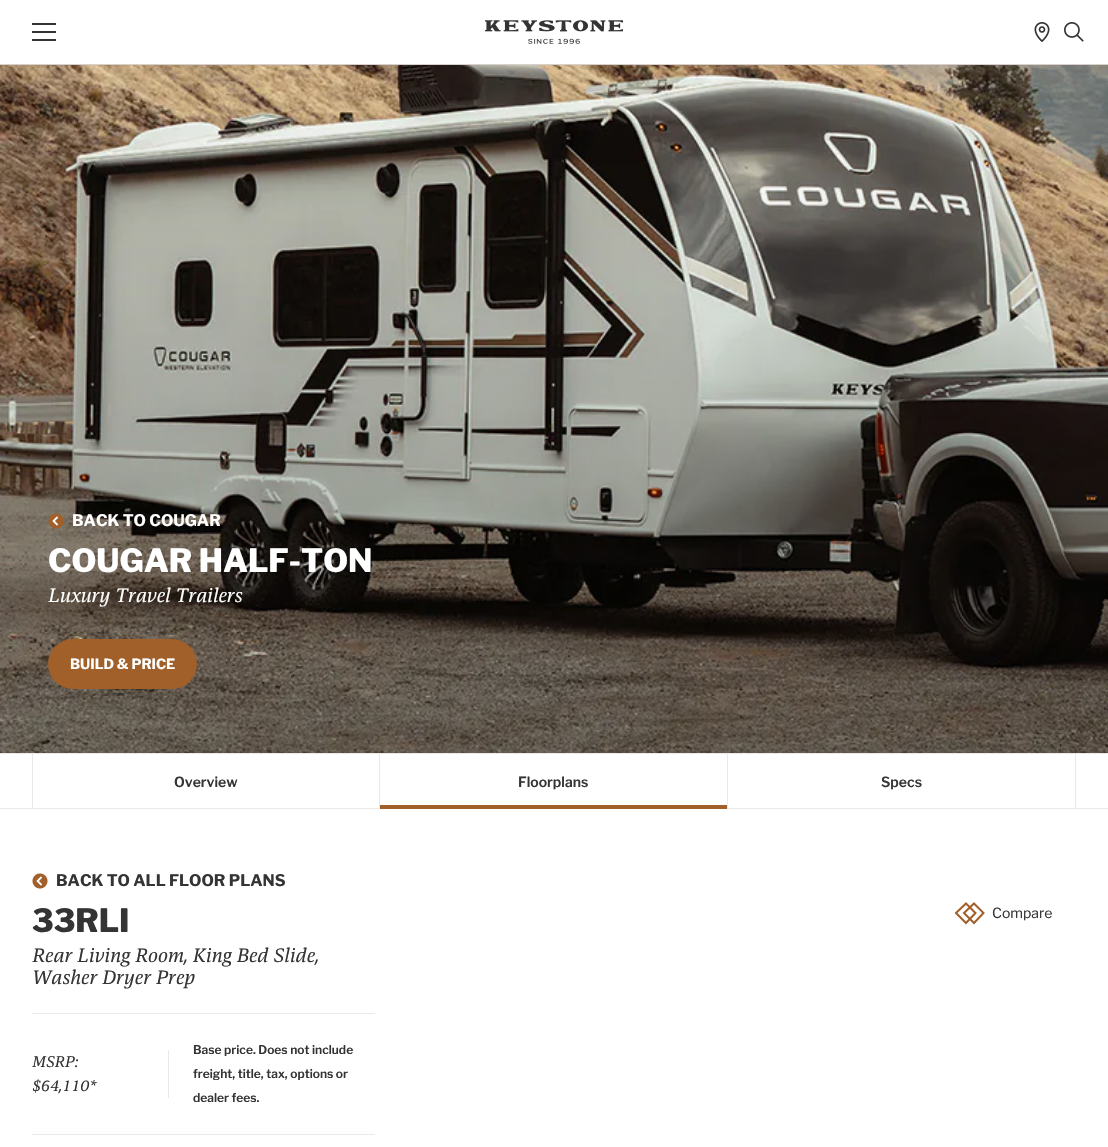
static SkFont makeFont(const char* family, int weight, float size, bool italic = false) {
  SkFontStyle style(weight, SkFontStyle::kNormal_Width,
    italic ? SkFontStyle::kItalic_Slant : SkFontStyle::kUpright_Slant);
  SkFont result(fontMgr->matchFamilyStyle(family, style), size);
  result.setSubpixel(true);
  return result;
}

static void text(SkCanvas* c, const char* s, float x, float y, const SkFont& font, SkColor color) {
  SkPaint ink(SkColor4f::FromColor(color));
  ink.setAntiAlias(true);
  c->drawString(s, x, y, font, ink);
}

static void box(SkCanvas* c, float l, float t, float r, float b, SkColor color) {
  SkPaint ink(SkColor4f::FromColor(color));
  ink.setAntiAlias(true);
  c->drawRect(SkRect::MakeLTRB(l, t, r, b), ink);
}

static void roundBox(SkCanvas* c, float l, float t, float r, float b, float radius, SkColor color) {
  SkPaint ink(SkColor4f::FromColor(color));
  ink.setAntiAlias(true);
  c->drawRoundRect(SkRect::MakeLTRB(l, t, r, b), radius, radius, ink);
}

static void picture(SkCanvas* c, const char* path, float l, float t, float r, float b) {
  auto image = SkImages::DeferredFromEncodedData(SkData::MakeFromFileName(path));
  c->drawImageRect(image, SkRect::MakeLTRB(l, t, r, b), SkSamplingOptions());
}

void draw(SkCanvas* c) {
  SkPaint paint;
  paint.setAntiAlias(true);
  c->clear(0xffffffff);
  box(c, 0, 64, 1108, 65, 0xffd8d0cc);
  box(c, 32, 23, 56, 25, 0xff343434);
  box(c, 32, 31, 56, 33, 0xff343434);
  box(c, 32, 39, 56, 41, 0xff343434);
  picture(c, "img_01.png", 485, 20, 623, 44);
  picture(c, "img_02.png", 1034, 22, 1050, 42);
  picture(c, "img_03.png", 1064, 22, 1084, 42);
  picture(c, "img_04.png", 0, 65, 1108, 753);
  picture(c, "img_05.png", 48, 513, 64, 529);
  SkFont face1 = makeFont("Libre Franklin", 700, 16);
  text(c, "BACK TO COUGAR", 72, 526, face1, 0xffffffff);
  SkFont face2 = makeFont("Libre Franklin", 800, 32);
  text(c, "COUGAR HALF-TON", 48, 572, face2, 0xffffffff);
  SkFont face3 = makeFont("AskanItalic", 400, 20, true);
  text(c, "Luxury Travel Trailers", 48, 602, face3, 0xffffffff);
  roundBox(c, 48, 639, 197, 689, 25, 0xffa15f29);
  SkFont face4 = makeFont("Libre Franklin", 700, 14);
  text(c, "BUILD & PRICE", 70, 669, face4, 0xffffffff);
  box(c, 0, 753, 1108, 754, 0xffece8e6);
  box(c, 0, 808, 1108, 809, 0xffece8e6);
  box(c, 379, 754, 380, 808, 0xffece8e6);
  box(c, 32, 754, 33, 808, 0xffece8e6);
  SkFont face5 = makeFont("Libre Franklin", 600, 14);
  text(c, "Overview", 174, 787, face5, 0xff343434);
  box(c, 727, 754, 728, 808, 0xffece8e6);
  text(c, "Floorplans", 518, 787, face5, 0xff343434);
  box(c, 380, 805, 727, 809, 0xffa15f29);
  box(c, 1075, 754, 1076, 808, 0xffece8e6);
  text(c, "Specs", 881, 787, face5, 0xff343434);
  picture(c, "img_06.png", 32, 873, 48, 889);
  text(c, "BACK TO ALL FLOOR PLANS", 56, 886, face1, 0xff343434);
  text(c, "33RLI", 32, 932, face2, 0xff343434);
  text(c, "Rear Living Room, King Bed Slide,", 32, 962, face3, 0xff343434);
  text(c, "Washer Dryer Prep", 32, 984, face3, 0xff343434);
  box(c, 32, 1013, 375, 1014, 0xffece8e6);
  box(c, 32, 1134, 375, 1135, 0xffece8e6);
  box(c, 168, 1050, 169, 1098, 0xffece8e6);
  SkFont face6 = makeFont("AskanItalic", 400, 16, true);
  text(c, "MSRP:", 32, 1067, face6, 0xff343434);
  text(c, "$64,110*", 32, 1091, face6, 0xff343434);
  SkFont face7 = makeFont("Libre Franklin", 600, 12);
  text(c, "Base price. Does not include", 193, 1054, face7, 0xff343434);
  text(c, "freight, title, tax, options or", 193, 1078, face7, 0xff343434);
  text(c, "dealer fees.", 193, 1102, face7, 0xff343434);
  paint.setStyle(SkPaint::kStroke_Style);
  paint.setStrokeWidth(2);
  paint.setColor(0xffa15f29);
  c->drawPath(SkPathBuilder().moveTo(966, 903.5f).lineTo(975.5f, 913).lineTo(966, 923).lineTo(956, 913).close().moveTo(974, 903.5f).lineTo(983.5f, 913).lineTo(974, 923).lineTo(964, 913).close().detach(), paint);
  SkFont face8 = makeFont("Libre Franklin", 400, 14);
  text(c, "Compare", 992, 918, face8, 0xff343434);
}
